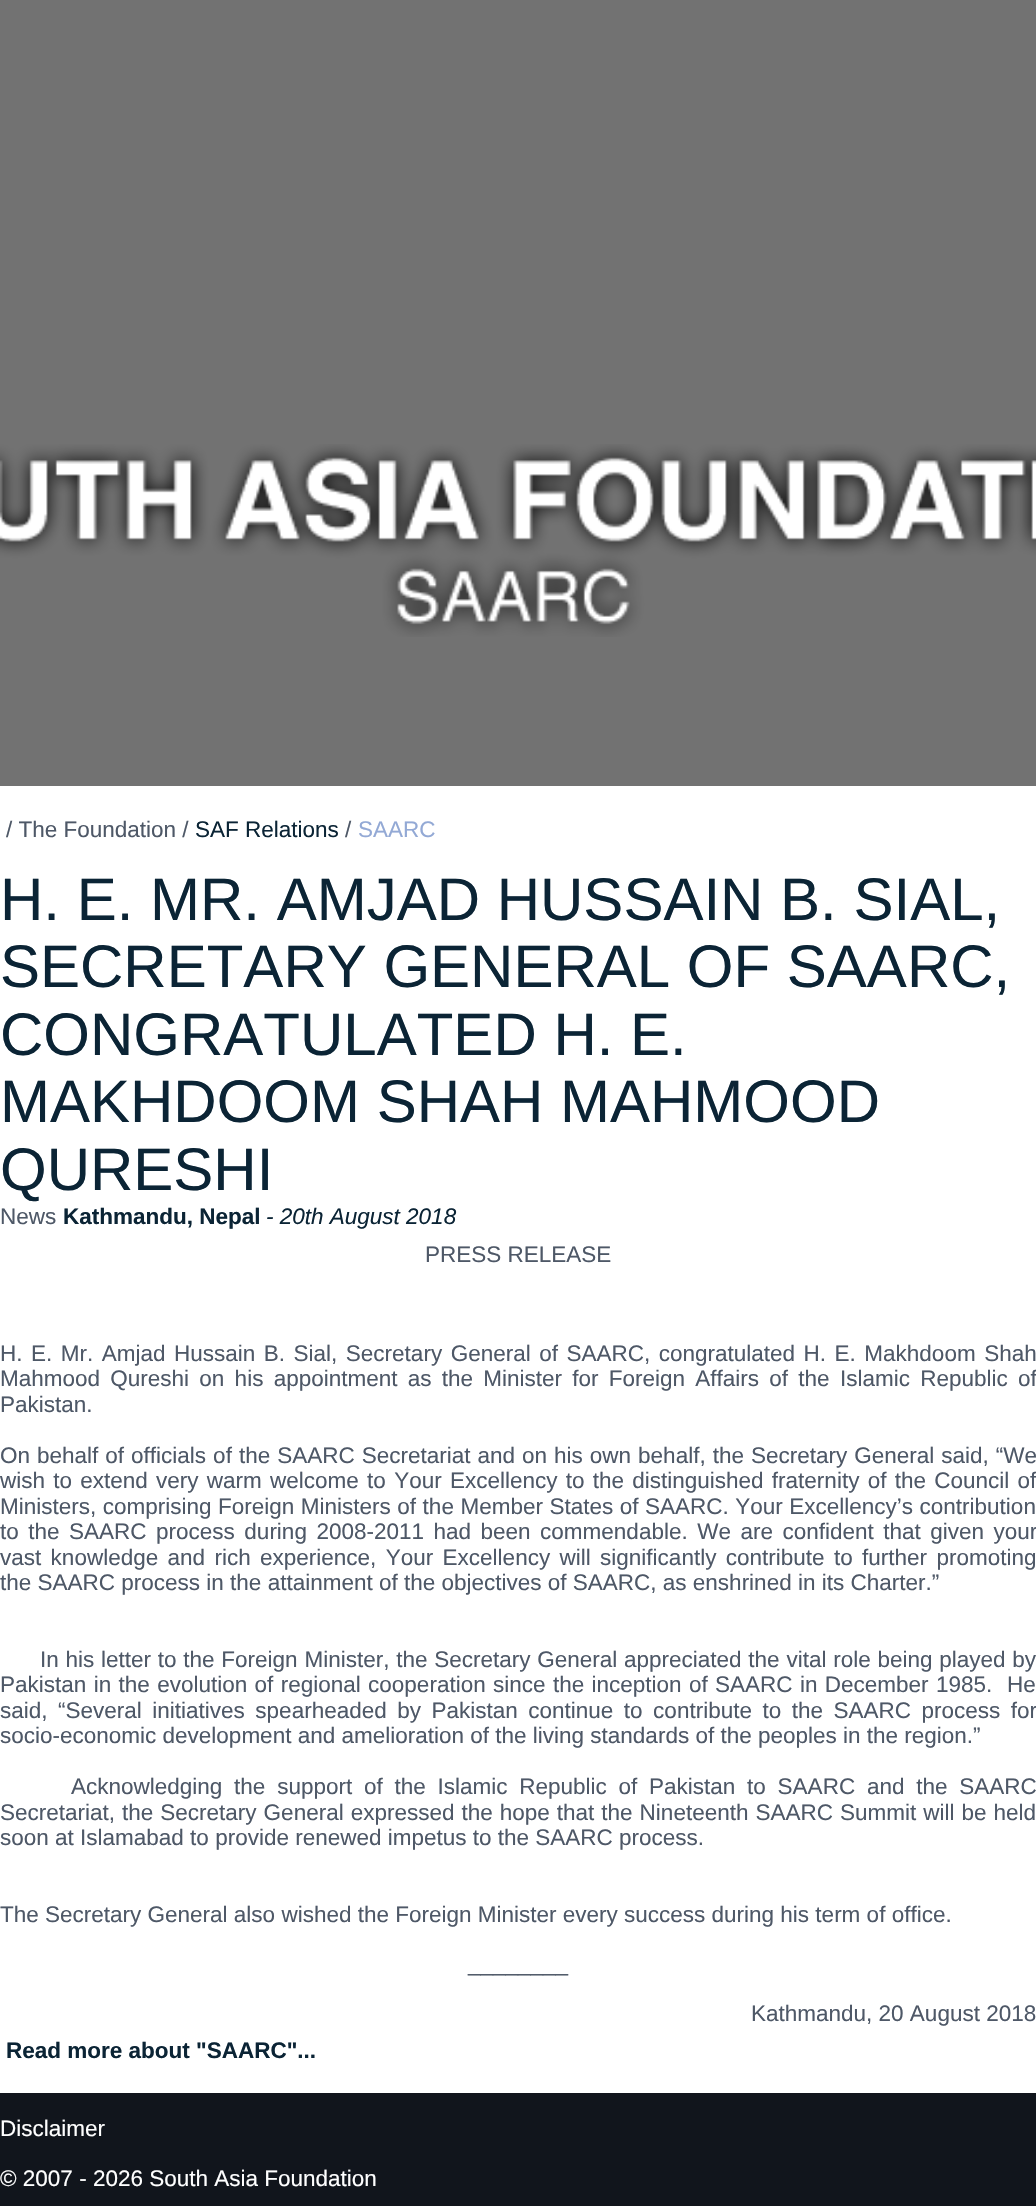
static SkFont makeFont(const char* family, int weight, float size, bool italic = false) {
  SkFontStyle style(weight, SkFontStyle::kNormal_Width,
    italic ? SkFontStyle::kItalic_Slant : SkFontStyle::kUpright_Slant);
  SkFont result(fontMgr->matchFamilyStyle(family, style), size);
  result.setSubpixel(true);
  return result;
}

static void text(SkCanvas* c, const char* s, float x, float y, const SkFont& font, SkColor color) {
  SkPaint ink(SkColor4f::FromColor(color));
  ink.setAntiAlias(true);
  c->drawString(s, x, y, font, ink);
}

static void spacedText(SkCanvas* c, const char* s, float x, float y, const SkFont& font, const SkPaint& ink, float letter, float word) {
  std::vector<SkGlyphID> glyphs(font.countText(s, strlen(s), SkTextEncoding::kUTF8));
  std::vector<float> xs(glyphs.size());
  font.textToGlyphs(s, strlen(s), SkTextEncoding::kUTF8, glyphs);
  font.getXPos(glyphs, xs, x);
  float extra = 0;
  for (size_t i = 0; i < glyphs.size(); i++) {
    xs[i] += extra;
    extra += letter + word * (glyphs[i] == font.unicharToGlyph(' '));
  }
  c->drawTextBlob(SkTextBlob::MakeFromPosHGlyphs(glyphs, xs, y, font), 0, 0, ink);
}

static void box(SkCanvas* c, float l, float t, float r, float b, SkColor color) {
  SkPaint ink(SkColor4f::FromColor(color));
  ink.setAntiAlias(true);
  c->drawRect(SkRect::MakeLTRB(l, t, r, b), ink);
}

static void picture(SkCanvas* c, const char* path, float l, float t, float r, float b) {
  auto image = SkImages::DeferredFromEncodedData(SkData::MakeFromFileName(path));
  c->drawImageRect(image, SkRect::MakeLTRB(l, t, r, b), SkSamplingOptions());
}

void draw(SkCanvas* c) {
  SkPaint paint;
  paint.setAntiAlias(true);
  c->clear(0xffffffff);
  box(c, 0, 0, 1036, 786, 0xff727272);
  picture(c, "img_01.png", 0, 444, 1036, 637);
  SkFont face1 = makeFont("Liberation Sans", 400, 22.5f);
  text(c, "/ The Foundation /", 6, 837, face1, 0xff4e5867);
  text(c, "SAF Relations", 195, 837, face1, 0xff0b2435);
  text(c, "/", 345, 837, face1, 0xff4e5867);
  text(c, "SAARC", 358, 837, face1, 0xff93a9d5);
  SkFont face2 = makeFont("Liberation Sans", 400, 60);
  text(c, "H. E. MR. AMJAD HUSSAIN B. SIAL,", 0, 920, face2, 0xff0b2435);
  text(c, "SECRETARY GENERAL OF SAARC,", 0, 987, face2, 0xff0b2435);
  text(c, "CONGRATULATED H. E.", 0, 1055, face2, 0xff0b2435);
  text(c, "MAKHDOOM SHAH MAHMOOD", 0, 1122, face2, 0xff0b2435);
  text(c, "QURESHI", 0, 1190, face2, 0xff0b2435);
  text(c, "News", 0, 1224, face1, 0xff4e5867);
  SkFont face3 = makeFont("Liberation Sans", 700, 22.5f);
  text(c, "Kathmandu, Nepal", 63, 1224, face3, 0xff0b2435);
  SkFont face4 = makeFont("Liberation Sans", 400, 22.5f, true);
  text(c, "- 20th August 2018", 266, 1224, face4, 0xff0b2435);
  text(c, "PRESS RELEASE", 425, 1262, face1, 0xff4e5867);
  paint.setColor(0xff4e5867);
  spacedText(c, "H. E. Mr. Amjad Hussain B. Sial, Secretary General of SAARC, congratulated H. E. Makhdoom Shah", 0, 1361, face1, paint, 0, 2.25f);
  spacedText(c, "Mahmood Qureshi on his appointment as the Minister for Foreign Affairs of the Islamic Republic of", 0, 1386, face1, paint, 0, 4);
  text(c, "Pakistan.", 0, 1412, face1, 0xff4e5867);
  spacedText(c, "On behalf of officials of the SAARC Secretariat and on his own behalf, the Secretary General said, “We", 0, 1463, face1, paint, 0, 0.75f);
  spacedText(c, "wish to extend very warm welcome to Your Excellency to the distinguished fraternity of the Council of", 0, 1488, face1, paint, 0, 2);
  spacedText(c, "Ministers, comprising Foreign Ministers of the Member States of SAARC. Your Excellency’s contribution", 0, 1514, face1, paint, 0, 0.25f);
  spacedText(c, "to the SAARC process during 2008-2011 had been commendable. We are confident that given your", 0, 1539, face1, paint, 0, 3.25f);
  spacedText(c, "vast knowledge and rich experience, Your Excellency will significantly contribute to further promoting", 0, 1565, face1, paint, 0, 3.1f);
  text(c, "the SAARC process in the attainment of the objectives of SAARC, as enshrined in its Charter.”", 0, 1590, face1, 0xff4e5867);
  spacedText(c, "In his letter to the Foreign Minister, the Secretary General appreciated the vital role being played by", 40, 1667, face1, paint, 0, 0.5f);
  spacedText(c, "Pakistan in the evolution of regional cooperation since the inception of SAARC in December 1985.  He", 0, 1692, face1, paint, 0, 1.1f);
  spacedText(c, "said, “Several initiatives spearheaded by Pakistan continue to contribute to the SAARC process for", 0, 1718, face1, paint, 0, 4.25f);
  text(c, "socio-economic development and amelioration of the living standards of the peoples in the region.”", 0, 1743, face1, 0xff4e5867);
  spacedText(c, "Acknowledging the support of the Islamic Republic of Pakistan to SAARC and the SAARC", 71, 1794, face1, paint, 0, 5.5f);
  spacedText(c, "Secretariat, the Secretary General expressed the hope that the Nineteenth SAARC Summit will be held", 0, 1820, face1, paint, 0, 0.75f);
  text(c, "soon at Islamabad to provide renewed impetus to the SAARC process.", 0, 1845, face1, 0xff4e5867);
  text(c, "The Secretary General also wished the Foreign Minister every success during his term of office.", 0, 1922, face1, 0xff4e5867);
  text(c, "________", 468, 1971, face1, 0xff4e5867);
  text(c, "Kathmandu, 20 August 2018", 751, 2021, face1, 0xff4e5867);
  text(c, "Read more about \"SAARC\"...", 6, 2058, face3, 0xff0b2435);
  box(c, 0, 2093, 1036, 2206, 0xff11151c);
  text(c, "Disclaimer", 0, 2136, face1, 0xffffffff);
  text(c, "© 2007 - 2026 South Asia Foundation", 0, 2186, face1, 0xffffffff);
}
